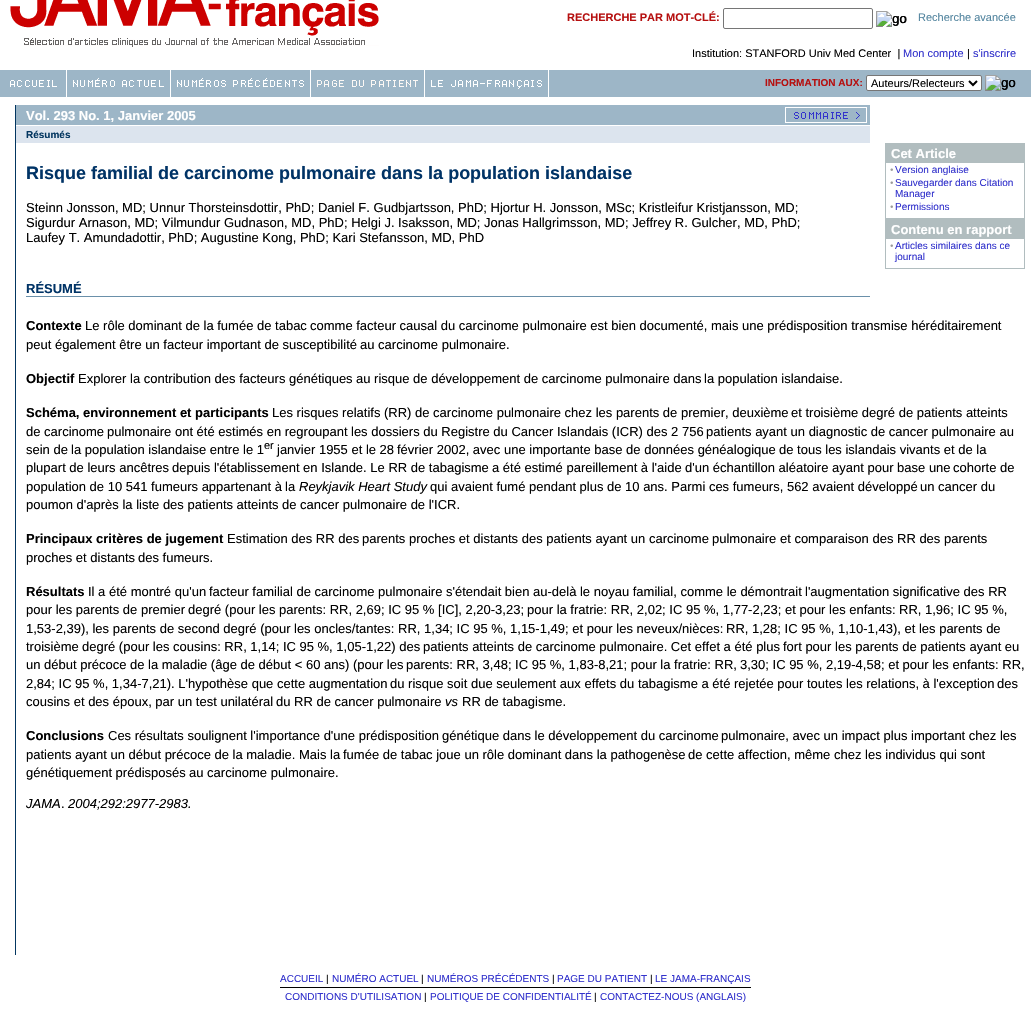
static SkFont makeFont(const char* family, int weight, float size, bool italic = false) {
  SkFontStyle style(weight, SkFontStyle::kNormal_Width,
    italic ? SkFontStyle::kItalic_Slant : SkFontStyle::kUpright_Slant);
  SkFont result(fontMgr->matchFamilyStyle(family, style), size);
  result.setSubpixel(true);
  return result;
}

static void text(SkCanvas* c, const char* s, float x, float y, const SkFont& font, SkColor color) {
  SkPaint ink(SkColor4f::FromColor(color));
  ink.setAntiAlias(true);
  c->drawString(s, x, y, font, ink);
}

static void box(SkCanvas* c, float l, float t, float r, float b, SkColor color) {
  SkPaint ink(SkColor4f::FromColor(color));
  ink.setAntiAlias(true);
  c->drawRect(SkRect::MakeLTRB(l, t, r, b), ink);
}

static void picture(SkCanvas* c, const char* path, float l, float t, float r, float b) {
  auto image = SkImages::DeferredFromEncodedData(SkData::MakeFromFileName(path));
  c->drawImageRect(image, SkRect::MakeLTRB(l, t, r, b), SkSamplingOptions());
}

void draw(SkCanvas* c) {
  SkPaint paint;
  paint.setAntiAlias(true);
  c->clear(0xffffffff);
  picture(c, "img_01.png", 10, 0, 379, 47);
  SkFont face1 = makeFont("Liberation Sans", 700, 11);
  text(c, "RECHERCHE PAR MOT-CLÉ:", 567, 21, face1, 0xffb61010);
  paint.setStyle(SkPaint::kStroke_Style);
  paint.setStrokeWidth(1);
  paint.setColor(0xff767676);
  c->drawRoundRect(SkRect::MakeLTRB(723.5f, 8.5f, 872.5f, 28.5f), 1.5f, 1.5f, paint);
  picture(c, "img_02.png", 876, 11, 907, 27);
  SkFont face2 = makeFont("Liberation Sans", 400, 13);
  text(c, "go", 892, 23, face2, 0xff000000);
  SkFont face3 = makeFont("Liberation Sans", 400, 11);
  text(c, "Recherche avancée", 918, 21, face3, 0xff53859f);
  text(c, "Institution: STANFORD Univ Med Center  |", 692, 57, face3, 0xff000000);
  text(c, "Mon compte", 903, 57, face3, 0xff3333cc);
  text(c, "|", 967, 57, face3, 0xff000000);
  text(c, "s'inscrire", 973, 57, face3, 0xff3333cc);
  box(c, 0, 70, 1031, 97, 0xff9db6c7);
  box(c, 66, 70, 67, 97, 0xffffffff);
  picture(c, "img_03.png", 10, 80, 57, 87);
  box(c, 170, 70, 171, 97, 0xffffffff);
  picture(c, "img_04.png", 73, 78, 164, 87);
  box(c, 310, 70, 311, 97, 0xffffffff);
  picture(c, "img_05.png", 177, 78, 304, 87);
  box(c, 424, 70, 425, 97, 0xffffffff);
  picture(c, "img_06.png", 317, 80, 418, 87);
  box(c, 548, 70, 549, 97, 0xffffffff);
  picture(c, "img_07.png", 431, 80, 542, 89);
  SkFont face4 = makeFont("Liberation Sans", 700, 10);
  text(c, "INFORMATION AUX:", 765, 86, face4, 0xffb61010);
  paint.setStyle(SkPaint::kFill_Style);
  paint.setColor(0xffffffff);
  c->drawRoundRect(SkRect::MakeLTRB(866.5f, 75.5f, 981.5f, 90.5f), 1.5f, 1.5f, paint);
  paint.setStyle(SkPaint::kStroke_Style);
  paint.setColor(0xff767676);
  c->drawRoundRect(SkRect::MakeLTRB(866.5f, 75.5f, 981.5f, 90.5f), 1.5f, 1.5f, paint);
  paint.setStrokeWidth(2);
  paint.setColor(0xff000000);
  c->drawPath(SkPathBuilder().moveTo(969, 81).lineTo(973, 85).lineTo(977, 81).detach(), paint);
  text(c, "Auteurs/Relecteurs", 871, 87, face3, 0xff000000);
  picture(c, "img_08.png", 985, 75, 1016, 91);
  text(c, "go", 1001, 87, face2, 0xff000000);
  box(c, 15, 105, 16, 955, 0xff033660);
  box(c, 16, 105, 870, 125, 0xff9db6c7);
  SkFont face5 = makeFont("Liberation Sans", 700, 13);
  text(c, "Vol. 293 No. 1, Janvier 2005", 26, 120, face5, 0xffffffff);
  picture(c, "img_09.png", 785, 107, 867, 123);
  box(c, 16, 126, 870, 143, 0xffdce4ee);
  text(c, "Résumés", 26, 138, face4, 0xff033660);
  SkFont face6 = makeFont("Liberation Sans", 700, 18);
  text(c, "Risque familial de carcinome pulmonaire dans la population islandaise", 26, 179, face6, 0xff003366);
  box(c, 885, 143, 886, 269, 0xffb1bdbf);
  box(c, 886, 143, 1024, 163, 0xffb1bdbf);
  text(c, "Cet Article", 891, 158, face5, 0xffffffff);
  SkFont face7 = makeFont("Liberation Serif", 400, 10);
  text(c, "•", 890, 173, face7, 0xff999999);
  SkFont face8 = makeFont("Liberation Sans", 400, 10);
  text(c, "Version anglaise", 895, 173, face8, 0xff3333cc);
  text(c, "•", 890, 186, face7, 0xff999999);
  text(c, "Sauvegarder dans Citation", 895, 186, face8, 0xff3333cc);
  text(c, "Manager", 895, 197, face8, 0xff3333cc);
  text(c, "•", 890, 210, face7, 0xff999999);
  text(c, "Permissions", 895, 210, face8, 0xff3333cc);
  box(c, 1024, 143, 1025, 269, 0xffb1bdbf);
  box(c, 886, 218, 1024, 239, 0xffb1bdbf);
  text(c, "Contenu en rapport", 891, 234, face5, 0xffffffff);
  text(c, "•", 890, 249, face7, 0xff999999);
  text(c, "Articles similaires dans ce", 895, 249, face8, 0xff3333cc);
  text(c, "journal", 895, 260, face8, 0xff3333cc);
  box(c, 886, 268, 1024, 269, 0xffb1bdbf);
  text(c, "Steinn Jonsson, MD; Unnur Thorsteinsdottir, PhD; Daniel F. Gudbjartsson, PhD; Hjortur H. Jonsson, MSc; Kristleifur Kristjansson, MD;", 26, 212, face2, 0xff000000);
  text(c, "Sigurdur Arnason, MD; Vilmundur Gudnason, MD, PhD; Helgi J. Isaksson, MD; Jonas Hallgrimsson, MD; Jeffrey R. Gulcher, MD, PhD;", 26, 227, face2, 0xff000000);
  text(c, "Laufey T. Amundadottir, PhD; Augustine Kong, PhD; Kari Stefansson, MD, PhD", 26, 242, face2, 0xff000000);
  text(c, "RÉSUMÉ", 26, 293, face5, 0xff003366);
  box(c, 26, 296, 870, 297, 0xff6a90aa);
  text(c, "Contexte", 26, 330, face5, 0xff000000);
  text(c, "Le rôle dominant de la fumée de tabac", 85, 330, face2, 0xff000000);
  text(c, "comme facteur causal du carcinome pulmonaire est bien documenté,", 310, 330, face2, 0xff000000);
  text(c, "mais une prédisposition transmise héréditairement", 711, 330, face2, 0xff000000);
  text(c, "peut également être un facteur important de susceptibilité", 26, 349, face2, 0xff000000);
  text(c, "au carcinome pulmonaire.", 360, 349, face2, 0xff000000);
  text(c, "Objectif", 26, 383, face5, 0xff000000);
  text(c, "Explorer la contribution des facteurs génétiques", 78, 383, face2, 0xff000000);
  text(c, "au risque de développement de carcinome pulmonaire dans", 356, 383, face2, 0xff000000);
  text(c, "la population islandaise.", 704, 383, face2, 0xff000000);
  text(c, "Schéma, environnement et participants", 26, 417, face5, 0xff000000);
  text(c, "Les risques relatifs (RR)", 272, 417, face2, 0xff000000);
  text(c, "de carcinome pulmonaire chez les parents de premier, deuxième", 415, 417, face2, 0xff000000);
  text(c, "et troisième degré de patients atteints", 791, 417, face2, 0xff000000);
  text(c, "de carcinome", 26, 436, face2, 0xff000000);
  text(c, "pulmonaire ont été estimés en regroupant", 107, 436, face2, 0xff000000);
  text(c, "les dossiers du Registre du Cancer Islandais (ICR) des 2 756", 351, 436, face2, 0xff000000);
  text(c, "patients ayant un diagnostic de cancer pulmonaire au", 706, 436, face2, 0xff000000);
  text(c, "sein de", 26, 454, face2, 0xff000000);
  text(c, "la population islandaise entre le 1", 71, 454, face2, 0xff000000);
  text(c, "er", 264, 449, face3, 0xff000000);
  text(c, "janvier 1955 et le 28", 277, 454, face2, 0xff000000);
  text(c, "février 2002, avec une importante base de données généalogique", 397, 454, face2, 0xff000000);
  text(c, "de tous les islandais vivants et de la", 779, 454, face2, 0xff000000);
  text(c, "plupart de leurs ancêtres", 26, 472, face2, 0xff000000);
  text(c, "depuis l'établissement en Islande. Le RR de tabagisme", 172, 472, face2, 0xff000000);
  text(c, "a été estimé pareillement à l'aide", 492, 472, face2, 0xff000000);
  text(c, "d'un échantillon aléatoire ayant pour base une", 685, 472, face2, 0xff000000);
  text(c, "cohorte de", 953, 472, face2, 0xff000000);
  text(c, "population de 10 541 fumeurs appartenant à", 26, 491, face2, 0xff000000);
  text(c, "la", 285, 491, face2, 0xff000000);
  SkFont face9 = makeFont("Liberation Sans", 400, 13, true);
  text(c, "Reykjavik Heart Study", 299, 491, face9, 0xff000000);
  text(c, "qui avaient fumé pendant plus", 430, 491, face2, 0xff000000);
  text(c, "de 10 ans. Parmi ces fumeurs, 562 avaient développé", 607, 491, face2, 0xff000000);
  text(c, "un cancer du", 920, 491, face2, 0xff000000);
  text(c, "poumon d'après la liste des patients atteints", 26, 509, face2, 0xff000000);
  text(c, "de cancer pulmonaire de l'ICR.", 282, 509, face2, 0xff000000);
  text(c, "Principaux critères de jugement", 26, 543, face5, 0xff000000);
  text(c, "Estimation des RR des", 227, 543, face2, 0xff000000);
  text(c, "parents proches et distants des patients ayant un carcinome", 362, 543, face2, 0xff000000);
  text(c, "pulmonaire et comparaison des RR des parents", 712, 543, face2, 0xff000000);
  text(c, "proches et distants", 26, 562, face2, 0xff000000);
  text(c, "des fumeurs.", 138, 562, face2, 0xff000000);
  text(c, "Résultats", 26, 596, face5, 0xff000000);
  text(c, "Il a été montré qu'un", 88, 596, face2, 0xff000000);
  text(c, "facteur familial de carcinome pulmonaire s'étendait bien", 209, 596, face2, 0xff000000);
  text(c, "au-delà le noyau familial, comme le démontrait", 533, 596, face2, 0xff000000);
  text(c, "l'augmentation significative des RR", 805, 596, face2, 0xff000000);
  text(c, "pour les parents de premier", 26, 614, face2, 0xff000000);
  text(c, "degré (pour les parents: RR, 2,69; IC 95 % [IC], 2,20-3,23;", 188, 614, face2, 0xff000000);
  text(c, "pour la fratrie: RR, 2,02; IC 95 %, 1,77-2,23; et pour les enfants:", 527, 614, face2, 0xff000000);
  text(c, "RR, 1,96; IC 95 %,", 899, 614, face2, 0xff000000);
  text(c, "1,53-2,39), les parents de second degré (pour", 26, 633, face2, 0xff000000);
  text(c, "les oncles/tantes: RR, 1,34; IC 95 %, 1,15-1,49; et pour les neveux/nièces:", 294, 633, face2, 0xff000000);
  text(c, "RR, 1,28; IC 95 %, 1,10-1,43), et les parents de", 726, 633, face2, 0xff000000);
  text(c, "troisième", 26, 651, face2, 0xff000000);
  text(c, "degré (pour les cousins: RR, 1,14; IC 95 %, 1,05-1,22) des", 82, 651, face2, 0xff000000);
  text(c, "patients atteints de carcinome pulmonaire. Cet effet a été plus", 423, 651, face2, 0xff000000);
  text(c, "fort pour les parents de patients ayant eu", 783, 651, face2, 0xff000000);
  text(c, "un début précoce de", 26, 669, face2, 0xff000000);
  text(c, "la maladie (âge de début < 60 ans) (pour les", 148, 669, face2, 0xff000000);
  text(c, "parents: RR, 3,48; IC 95 %, 1,83-8,21; pour la fratrie: RR,", 406, 669, face2, 0xff000000);
  text(c, "3,30; IC 95 %, 2,19-4,58; et pour les enfants: RR,", 740, 669, face2, 0xff000000);
  text(c, "2,84; IC", 26, 688, face2, 0xff000000);
  text(c, "95 %, 1,34-7,21). L'hypothèse que cette augmentation", 75, 688, face2, 0xff000000);
  text(c, "du risque soit due seulement aux effets du tabagisme a été", 390, 688, face2, 0xff000000);
  text(c, "rejetée pour toutes les relations, à l'exception", 734, 688, face2, 0xff000000);
  text(c, "des", 997, 688, face2, 0xff000000);
  text(c, "cousins et des époux, par un test unilatéral", 26, 706, face2, 0xff000000);
  text(c, "du RR de cancer pulmonaire", 276, 706, face2, 0xff000000);
  text(c, "vs", 445, 706, face9, 0xff000000);
  text(c, "RR de tabagisme.", 462, 706, face2, 0xff000000);
  text(c, "Conclusions", 26, 740, face5, 0xff000000);
  text(c, "Ces résultats soulignent l'importance d'une prédisposition", 108, 740, face2, 0xff000000);
  text(c, "génétique dans le développement du carcinome", 442, 740, face2, 0xff000000);
  text(c, "pulmonaire, avec un impact plus important chez les", 721, 740, face2, 0xff000000);
  text(c, "patients", 26, 759, face2, 0xff000000);
  text(c, "ayant un début précoce de la maladie. Mais la", 75, 759, face2, 0xff000000);
  text(c, "fumée de tabac joue un rôle dominant dans la pathogenèse", 343, 759, face2, 0xff000000);
  text(c, "de cette affection, même chez les individus qui sont", 688, 759, face2, 0xff000000);
  text(c, "génétiquement prédisposés", 26, 777, face2, 0xff000000);
  text(c, "au carcinome pulmonaire.", 189, 777, face2, 0xff000000);
  text(c, "JAMA", 26, 808, face9, 0xff000000);
  text(c, ".", 61, 808, face2, 0xff000000);
  text(c, "2004;292:2977-2983.", 68, 808, face9, 0xff000000);
  text(c, "ACCUEIL", 280, 982, face8, 0xff3333cc);
  text(c, "|", 326, 982, face8, 0xff000000);
  text(c, "NUMÉRO ACTUEL", 332, 982, face8, 0xff3333cc);
  text(c, "|", 421, 982, face8, 0xff000000);
  text(c, "NUMÉROS PRÉCÉDENTS", 427, 982, face8, 0xff3333cc);
  text(c, "|", 552, 982, face8, 0xff000000);
  text(c, "PAGE DU PATIENT", 557, 982, face8, 0xff3333cc);
  text(c, "|", 650, 982, face8, 0xff000000);
  text(c, "LE JAMA-FRANÇAIS", 655, 982, face8, 0xff3333cc);
  box(c, 280, 987, 751, 988, 0xff000000);
  text(c, "CONDITIONS D'UTILISATION", 285, 1000, face8, 0xff3333cc);
  text(c, "|", 424, 1000, face8, 0xff000000);
  text(c, "POLITIQUE DE CONFIDENTIALITÉ", 430, 1000, face8, 0xff3333cc);
  text(c, "|", 594, 1000, face8, 0xff000000);
  text(c, "CONTACTEZ-NOUS (ANGLAIS)", 600, 1000, face8, 0xff3333cc);
}
